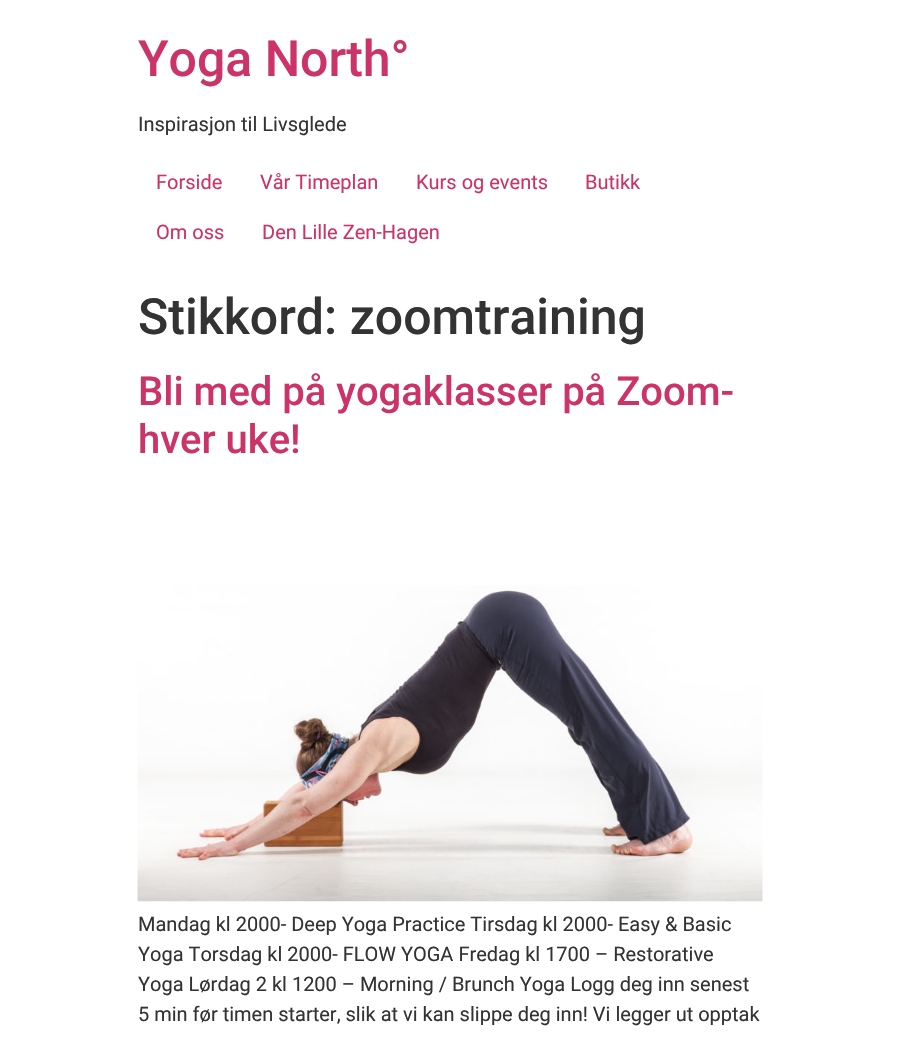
static SkFont makeFont(const char* family, int weight, float size, bool italic = false) {
  SkFontStyle style(weight, SkFontStyle::kNormal_Width,
    italic ? SkFontStyle::kItalic_Slant : SkFontStyle::kUpright_Slant);
  SkFont result(fontMgr->matchFamilyStyle(family, style), size);
  result.setSubpixel(true);
  return result;
}

static void text(SkCanvas* c, const char* s, float x, float y, const SkFont& font, SkColor color) {
  SkPaint ink(SkColor4f::FromColor(color));
  ink.setAntiAlias(true);
  c->drawString(s, x, y, font, ink);
}

static void picture(SkCanvas* c, const char* path, float l, float t, float r, float b) {
  auto image = SkImages::DeferredFromEncodedData(SkData::MakeFromFileName(path));
  c->drawImageRect(image, SkRect::MakeLTRB(l, t, r, b), SkSamplingOptions());
}

void draw(SkCanvas* c) {
  SkPaint paint;
  paint.setAntiAlias(true);
  c->clear(0xffffffff);
  SkFont face1 = makeFont("Roboto", 500, 50);
  text(c, "Yoga North°", 138, 76, face1, 0xffcc3366);
  SkFont face2 = makeFont("Roboto", 400, 20);
  text(c, "Inspirasjon til Livsglede", 138, 131, face2, 0xff333333);
  text(c, "Forside", 156, 189, face2, 0xffcc3366);
  text(c, "Vår Timeplan", 260, 189, face2, 0xffcc3366);
  text(c, "Kurs og events", 416, 189, face2, 0xffcc3366);
  text(c, "Butikk", 585, 189, face2, 0xffcc3366);
  text(c, "Om oss", 156, 239, face2, 0xffcc3366);
  text(c, "Den Lille Zen-Hagen", 262, 239, face2, 0xffcc3366);
  text(c, "Stikkord: zoomtraining", 138, 334, face1, 0xff333333);
  SkFont face3 = makeFont("Roboto", 500, 40);
  text(c, "Bli med på yogaklasser på Zoom-", 138, 405, face3, 0xffcc3366);
  text(c, "hver uke!", 138, 453, face3, 0xffcc3366);
  picture(c, "img_01.png", 137, 585, 763, 902);
  text(c, "Mandag kl 2000- Deep Yoga Practice Tirsdag kl 2000- Easy & Basic", 138, 931, face2, 0xff333333);
  text(c, "Yoga Torsdag kl 2000- FLOW YOGA Fredag kl 1700 – Restorative", 138, 961, face2, 0xff333333);
  text(c, "Yoga Lørdag 2 kl 1200 – Morning / Brunch Yoga Logg deg inn senest", 138, 991, face2, 0xff333333);
  text(c, "5 min før timen starter, slik at vi kan slippe deg inn! Vi legger ut opptak", 138, 1021, face2, 0xff333333);
}
